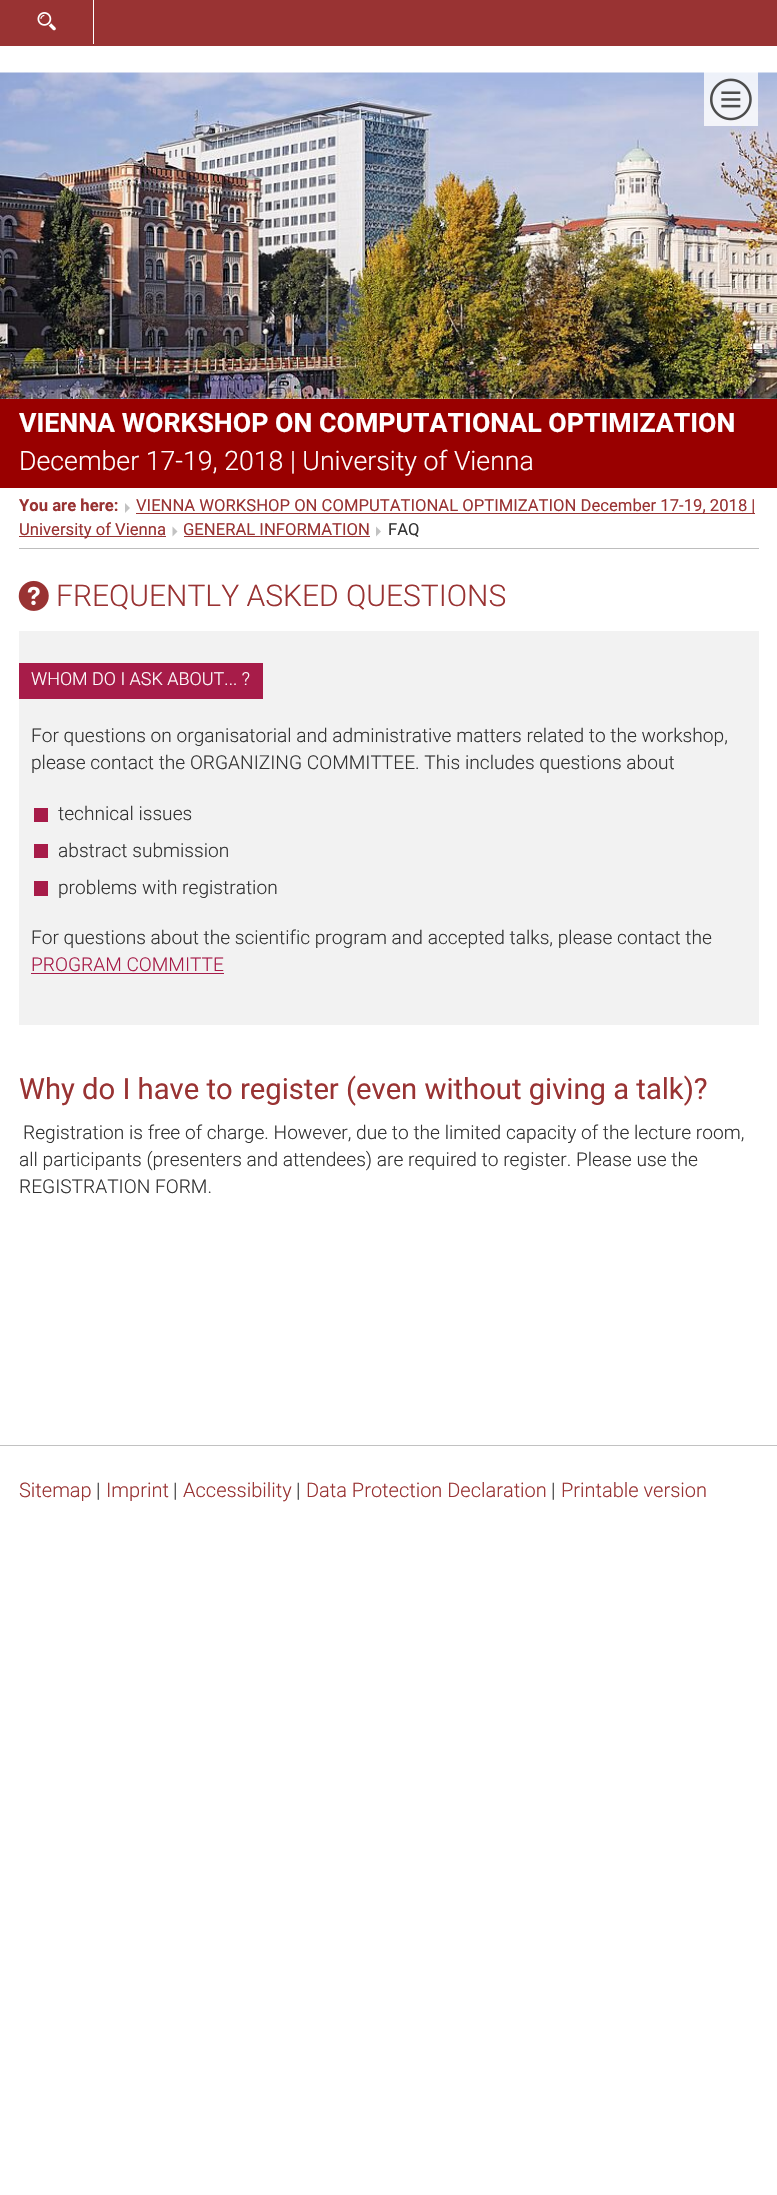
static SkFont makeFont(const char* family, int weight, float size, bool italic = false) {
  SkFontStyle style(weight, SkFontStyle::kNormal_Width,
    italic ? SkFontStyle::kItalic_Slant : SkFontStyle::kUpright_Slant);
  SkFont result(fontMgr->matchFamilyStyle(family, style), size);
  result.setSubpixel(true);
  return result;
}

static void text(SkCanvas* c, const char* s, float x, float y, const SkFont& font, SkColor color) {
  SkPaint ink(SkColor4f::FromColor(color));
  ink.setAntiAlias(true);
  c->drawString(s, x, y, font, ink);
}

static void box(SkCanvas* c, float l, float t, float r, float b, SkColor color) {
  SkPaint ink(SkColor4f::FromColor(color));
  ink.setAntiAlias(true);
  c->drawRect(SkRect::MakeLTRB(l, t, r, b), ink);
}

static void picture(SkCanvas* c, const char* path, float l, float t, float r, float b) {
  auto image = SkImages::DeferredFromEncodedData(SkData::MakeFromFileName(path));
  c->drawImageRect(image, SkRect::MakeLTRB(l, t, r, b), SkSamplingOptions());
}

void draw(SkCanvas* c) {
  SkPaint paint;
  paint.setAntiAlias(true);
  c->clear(0xffffffff);
  box(c, 0, 0, 777, 46, 0xff993333);
  box(c, 93, 0, 94, 44, 0xffffffff);
  picture(c, "img_01.png", 37, 12, 56, 31);
  picture(c, "img_03.png", 0, 72, 777, 399);
  box(c, 704, 72, 758, 126, 0xccffffff);
  picture(c, "img_02.png", 710, 78, 752, 121);
  box(c, 0, 399, 777, 488, 0xff990000);
  SkFont face1 = makeFont("Roboto", 700, 26.7f);
  text(c, "VIENNA WORKSHOP ON COMPUTATIONAL OPTIMIZATION", 19, 432, face1, 0xffffffff);
  SkFont face2 = makeFont("Roboto", 300, 26.7f);
  text(c, "December 17-19, 2018 | University of Vienna", 19, 470, face2, 0xffffffff);
  SkFont face3 = makeFont("Roboto", 700, 16.65f);
  text(c, "You are here:", 19, 511, face3, 0xff993333);
  box(c, 136, 513, 755, 514, 0xff993333);
  SkFont face4 = makeFont("Roboto", 400, 16.65f);
  text(c, "VIENNA WORKSHOP ON COMPUTATIONAL OPTIMIZATION December 17-19, 2018 |", 136, 511, face4, 0xff993333);
  paint.setColor(0xffc2c2c2);
  c->drawPath(SkPathBuilder().moveTo(125, 503).lineTo(125, 513).lineTo(130, 508).close().detach(), paint);
  box(c, 19, 536, 166, 537, 0xff993333);
  text(c, "University of Vienna", 19, 535, face4, 0xff993333);
  text(c, "GENERAL INFORMATION", 183, 535, face4, 0xff993333);
  c->drawPath(SkPathBuilder().moveTo(172.5f, 526.5f).lineTo(172.5f, 536.5f).lineTo(177.5f, 531.5f).close().detach(), paint);
  box(c, 184, 536, 370, 537, 0xff993333);
  text(c, "FAQ", 388, 535, face4, 0xff333333);
  c->drawPath(SkPathBuilder().moveTo(376, 526.5f).lineTo(376, 536.5f).lineTo(381, 531.5f).close().detach(), paint);
  box(c, 19, 548, 759, 549, 0xffbdbdbd);
  picture(c, "img_04.png", 18, 580, 49, 611);
  SkFont face5 = makeFont("Roboto", 300, 30);
  text(c, "FREQUENTLY ASKED QUESTIONS", 56, 606, face5, 0xff993333);
  box(c, 19, 631, 759, 1025, 0xfff2f2f2);
  box(c, 19, 663, 263, 699, 0xffa71c49);
  SkFont face6 = makeFont("Roboto", 300, 18);
  text(c, "WHOM DO I ASK ABOUT... ?", 31, 685, face6, 0xffffffff);
  SkFont face7 = makeFont("Roboto", 300, 19.15f);
  text(c, "For questions on organisatorial and administrative matters related to the workshop,", 31, 742, face7, 0xff333333);
  text(c, "please contact the ORGANIZING COMMITTEE. This includes questions about", 31, 769, face7, 0xff333333);
  box(c, 34, 808, 48, 822, 0xffa71c49);
  text(c, "technical issues", 58, 820, face7, 0xff333333);
  box(c, 34, 844, 48, 858, 0xffa71c49);
  text(c, "abstract submission", 58, 857, face7, 0xff333333);
  box(c, 34, 881, 48, 896, 0xffa71c49);
  text(c, "problems with registration", 58, 894, face7, 0xff333333);
  text(c, "For questions about the scientific program and accepted talks, please contact the", 31, 944, face7, 0xff333333);
  text(c, "PROGRAM COMMITTE", 31, 971, face7, 0xffa71c49);
  box(c, 31, 973, 224, 974, 0xffa71c49);
  SkFont face8 = makeFont("Roboto", 400, 29.2f);
  text(c, "Why do I have to register (even without giving a talk)?", 19, 1099, face8, 0xff993333);
  text(c, "Registration is free of charge. However, due to the limited capacity of the lecture room,", 23, 1139, face7, 0xff333333);
  text(c, "all participants (presenters and attendees) are required to register. Please use the", 19, 1166, face7, 0xff333333);
  text(c, "REGISTRATION FORM.", 19, 1193, face7, 0xff333333);
  box(c, 0, 1445, 777, 1446, 0xffc2c2c2);
  SkFont face9 = makeFont("Roboto", 300, 20);
  text(c, "Sitemap", 19, 1497, face9, 0xff993333);
  text(c, "|", 96, 1497, face9, 0xff333333);
  text(c, "Imprint", 106, 1497, face9, 0xff993333);
  text(c, "|", 173, 1497, face9, 0xff333333);
  text(c, "Accessibility", 183, 1497, face9, 0xff993333);
  text(c, "|", 296, 1497, face9, 0xff333333);
  text(c, "Data Protection Declaration", 306, 1497, face9, 0xff993333);
  text(c, "|", 551, 1497, face9, 0xff333333);
  text(c, "Printable version", 561, 1497, face9, 0xff993333);
}
